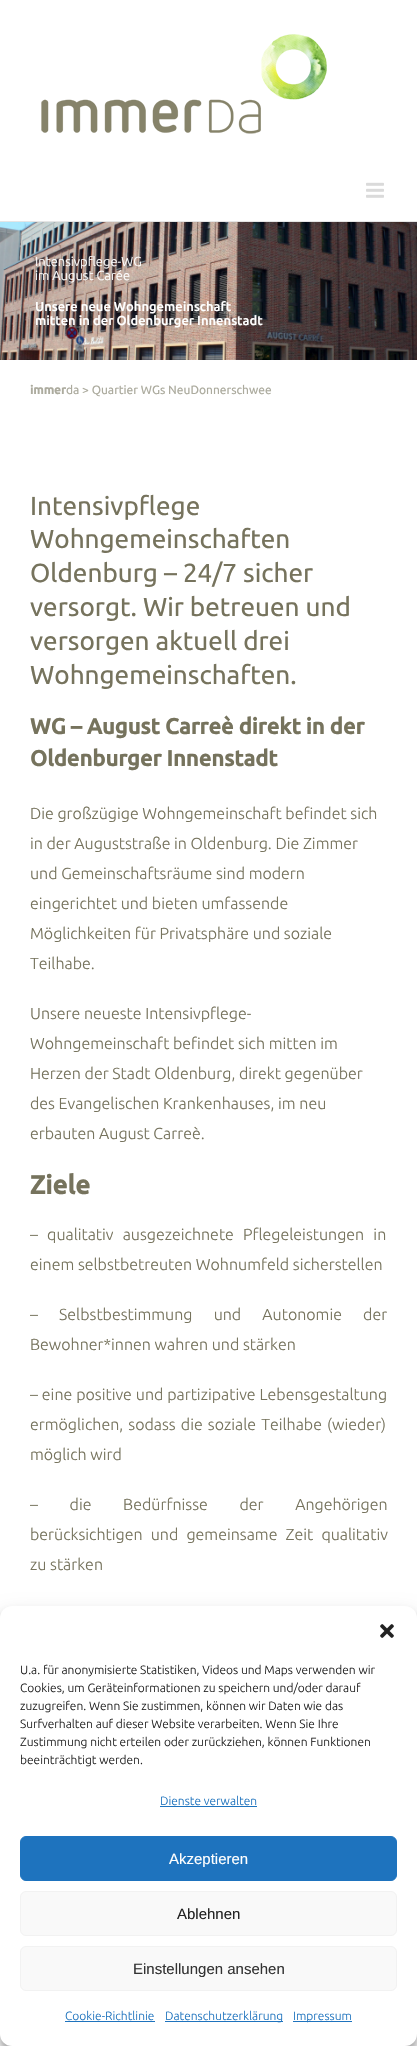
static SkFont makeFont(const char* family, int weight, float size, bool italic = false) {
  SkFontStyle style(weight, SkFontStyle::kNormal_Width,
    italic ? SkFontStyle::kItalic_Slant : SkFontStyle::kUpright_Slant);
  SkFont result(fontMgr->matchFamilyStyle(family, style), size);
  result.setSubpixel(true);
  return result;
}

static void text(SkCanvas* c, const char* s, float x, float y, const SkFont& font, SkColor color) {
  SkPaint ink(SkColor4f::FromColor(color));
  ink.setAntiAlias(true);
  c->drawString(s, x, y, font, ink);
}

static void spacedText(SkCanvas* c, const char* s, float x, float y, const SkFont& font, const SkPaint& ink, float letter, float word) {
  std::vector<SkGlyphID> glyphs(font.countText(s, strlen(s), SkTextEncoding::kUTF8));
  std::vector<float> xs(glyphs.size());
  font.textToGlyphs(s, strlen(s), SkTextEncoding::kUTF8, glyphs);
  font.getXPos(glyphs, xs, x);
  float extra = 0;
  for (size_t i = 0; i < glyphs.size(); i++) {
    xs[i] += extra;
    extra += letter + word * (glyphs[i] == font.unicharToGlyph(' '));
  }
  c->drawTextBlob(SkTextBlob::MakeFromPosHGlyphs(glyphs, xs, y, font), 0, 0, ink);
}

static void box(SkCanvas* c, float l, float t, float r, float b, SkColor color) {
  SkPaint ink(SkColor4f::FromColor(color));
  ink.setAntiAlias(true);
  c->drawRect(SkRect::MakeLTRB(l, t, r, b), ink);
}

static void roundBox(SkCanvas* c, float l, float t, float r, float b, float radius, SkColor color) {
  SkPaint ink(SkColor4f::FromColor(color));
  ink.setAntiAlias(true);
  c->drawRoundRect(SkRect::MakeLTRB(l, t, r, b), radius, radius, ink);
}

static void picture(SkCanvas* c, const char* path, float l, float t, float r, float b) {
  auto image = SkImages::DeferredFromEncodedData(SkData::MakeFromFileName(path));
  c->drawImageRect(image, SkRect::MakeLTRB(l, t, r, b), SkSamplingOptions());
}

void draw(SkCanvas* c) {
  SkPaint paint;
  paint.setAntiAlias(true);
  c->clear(0xffffffff);
  box(c, 0, 221, 417, 222, 0xffe5e5e5);
  picture(c, "img_01.png", 41, 34, 327, 134);
  picture(c, "img_02.png", 366, 182, 384, 198);
  picture(c, "img_03.png", 0, 222, 417, 360);
  SkFont face1 = makeFont("Ubuntu", 300, 13);
  text(c, "Intensivpflege-WG", 35, 266, face1, 0xffffffff);
  text(c, "im August Carée", 35, 280, face1, 0xffffffff);
  SkFont face2 = makeFont("Ubuntu", 500, 13);
  text(c, "Unsere neue Wohngemeinschaft", 35, 311, face2, 0xffffffff);
  text(c, "mitten in der Oldenburger Innenstadt", 35, 325, face2, 0xffffffff);
  SkFont face3 = makeFont("Ubuntu", 700, 12);
  text(c, "immer", 30, 394, face3, 0xffacab9e);
  SkFont face4 = makeFont("Ubuntu", 400, 12);
  text(c, "da > Quartier WGs NeuDonnerschwee", 66, 394, face4, 0xffacab9e);
  SkFont face5 = makeFont("Ubuntu", 400, 26.1f);
  text(c, "Intensivpflege", 30, 515, face5, 0xff76735d);
  text(c, "Wohngemeinschaften", 30, 548, face5, 0xff76735d);
  text(c, "Oldenburg – 24/7 sicher", 30, 582, face5, 0xff76735d);
  text(c, "versorgt. Wir betreuen und", 30, 616, face5, 0xff76735d);
  text(c, "versorgen aktuell drei", 30, 650, face5, 0xff76735d);
  text(c, "Wohngemeinschaften.", 30, 684, face5, 0xff76735d);
  SkFont face6 = makeFont("Ubuntu", 700, 22);
  text(c, "WG – August Carreè direkt in der", 30, 734, face6, 0xff76735d);
  text(c, "Oldenburger Innenstadt", 30, 766, face6, 0xff76735d);
  SkFont face7 = makeFont("Ubuntu", 300, 16);
  text(c, "Die großzügige Wohngemeinschaft befindet sich", 30, 819, face7, 0xff76735d);
  text(c, "in der Auguststraße in Oldenburg. Die Zimmer", 30, 849, face7, 0xff76735d);
  text(c, "und Gemeinschaftsräume sind modern", 30, 879, face7, 0xff76735d);
  text(c, "eingerichtet und bieten umfassende", 30, 909, face7, 0xff76735d);
  text(c, "Möglichkeiten für Privatsphäre und soziale", 30, 939, face7, 0xff76735d);
  text(c, "Teilhabe.", 30, 969, face7, 0xff76735d);
  text(c, "Unsere neueste Intensivpflege-", 30, 1019, face7, 0xff76735d);
  text(c, "Wohngemeinschaft befindet sich mitten im", 30, 1049, face7, 0xff76735d);
  text(c, "Herzen der Stadt Oldenburg, direkt gegenüber", 30, 1079, face7, 0xff76735d);
  text(c, "des Evangelischen Krankenhauses, im neu", 30, 1109, face7, 0xff76735d);
  text(c, "erbauten August Carreè.", 30, 1139, face7, 0xff76735d);
  SkFont face8 = makeFont("Ubuntu", 700, 26.1f);
  text(c, "Ziele", 30, 1194, face8, 0xff76735d);
  paint.setColor(0xff76735d);
  spacedText(c, "– qualitativ ausgezeichnete Pflegeleistungen in", 30, 1240, face7, paint, 0, 5.5f);
  text(c, "einem selbstbetreuten Wohnumfeld sicherstellen", 30, 1270, face7, 0xff76735d);
  spacedText(c, "– Selbstbestimmung und Autonomie der", 30, 1320, face7, paint, 0, 17.5f);
  text(c, "Bewohner*innen wahren und stärken", 30, 1350, face7, 0xff76735d);
  spacedText(c, "– eine positive und partizipative Lebensgestaltung", 30, 1400, face7, paint, 0, 0.25f);
  spacedText(c, "ermöglichen, sodass die soziale Teilhabe (wieder)", 30, 1430, face7, paint, 0, 1.5f);
  text(c, "möglich wird", 30, 1460, face7, 0xff76735d);
  spacedText(c, "– die Bedürfnisse der Angehörigen", 30, 1510, face7, paint, 0, 28);
  spacedText(c, "berücksichtigen und gemeinsame Zeit qualitativ", 30, 1540, face7, paint, 0, 4.5f);
  text(c, "zu stärken", 30, 1570, face7, 0xff76735d);
  paint.setColor(0x3b000000);
  paint.setMaskFilter(SkMaskFilter::MakeBlur(kNormal_SkBlurStyle, 3));
  c->drawRoundRect(SkRect::MakeLTRB(0, 1612, 417, 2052), 12, 12, paint);
  paint.setMaskFilter(nullptr);
  paint.setColor(0x30000000);
  paint.setMaskFilter(SkMaskFilter::MakeBlur(kNormal_SkBlurStyle, 10));
  c->drawRoundRect(SkRect::MakeLTRB(0, 1616, 417, 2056), 12, 12, paint);
  paint.setMaskFilter(nullptr);
  roundBox(c, 0, 1606, 417, 2046, 12, 0xffffffff);
  picture(c, "img_04.png", 380, 1624, 394, 1638);
  SkFont face9 = makeFont("Ubuntu", 300, 12);
  text(c, "U.a. für anonymisierte Statistiken, Videos und Maps verwenden wir", 20, 1674, face9, 0xff222222);
  text(c, "Cookies, um Geräteinformationen zu speichern und/oder darauf", 20, 1692, face9, 0xff222222);
  text(c, "zuzugreifen. Wenn Sie zustimmen, können wir Daten wie das", 20, 1710, face9, 0xff222222);
  text(c, "Surfverhalten auf dieser Website verarbeiten. Wenn Sie Ihre", 20, 1728, face9, 0xff222222);
  text(c, "Zustimmung nicht erteilen oder zurückziehen, können Funktionen", 20, 1746, face9, 0xff222222);
  text(c, "beeinträchtigt werden.", 20, 1764, face9, 0xff222222);
  text(c, "Dienste verwalten", 160, 1805, face9, 0xff1e73be);
  box(c, 160, 1806, 257, 1807, 0xff1e73be);
  paint.setColor(0xff1e73be);
  c->drawRoundRect(SkRect::MakeLTRB(20.5f, 1836.5f, 396.5f, 1880.5f), 5.5f, 5.5f, paint);
  paint.setStyle(SkPaint::kStroke_Style);
  paint.setStrokeWidth(1);
  c->drawRoundRect(SkRect::MakeLTRB(20.5f, 1836.5f, 396.5f, 1880.5f), 5.5f, 5.5f, paint);
  SkFont face10 = makeFont("Liberation Sans", 400, 15);
  text(c, "Akzeptieren", 169, 1864, face10, 0xffffffff);
  paint.setStyle(SkPaint::kFill_Style);
  paint.setColor(0xfff9f9f9);
  c->drawRoundRect(SkRect::MakeLTRB(20.5f, 1891.5f, 396.5f, 1935.5f), 5.5f, 5.5f, paint);
  paint.setStyle(SkPaint::kStroke_Style);
  paint.setColor(0xfff2f2f2);
  c->drawRoundRect(SkRect::MakeLTRB(20.5f, 1891.5f, 396.5f, 1935.5f), 5.5f, 5.5f, paint);
  text(c, "Ablehnen", 177, 1919, face10, 0xff222222);
  paint.setStyle(SkPaint::kFill_Style);
  paint.setColor(0xfff9f9f9);
  c->drawRoundRect(SkRect::MakeLTRB(20.5f, 1946.5f, 396.5f, 1990.5f), 5.5f, 5.5f, paint);
  paint.setStyle(SkPaint::kStroke_Style);
  paint.setColor(0xfff2f2f2);
  c->drawRoundRect(SkRect::MakeLTRB(20.5f, 1946.5f, 396.5f, 1990.5f), 5.5f, 5.5f, paint);
  text(c, "Einstellungen ansehen", 133, 1974, face10, 0xff333333);
  text(c, "Cookie-Richtlinie", 65, 2020, face9, 0xff1e73be);
  box(c, 65, 2021, 155, 2022, 0xff1e73be);
  box(c, 165, 2021, 283, 2022, 0xff1e73be);
  text(c, "Datenschutzerklärung", 165, 2020, face9, 0xff1e73be);
  box(c, 293, 2021, 352, 2022, 0xff1e73be);
  text(c, "Impressum", 293, 2020, face9, 0xff1e73be);
}
